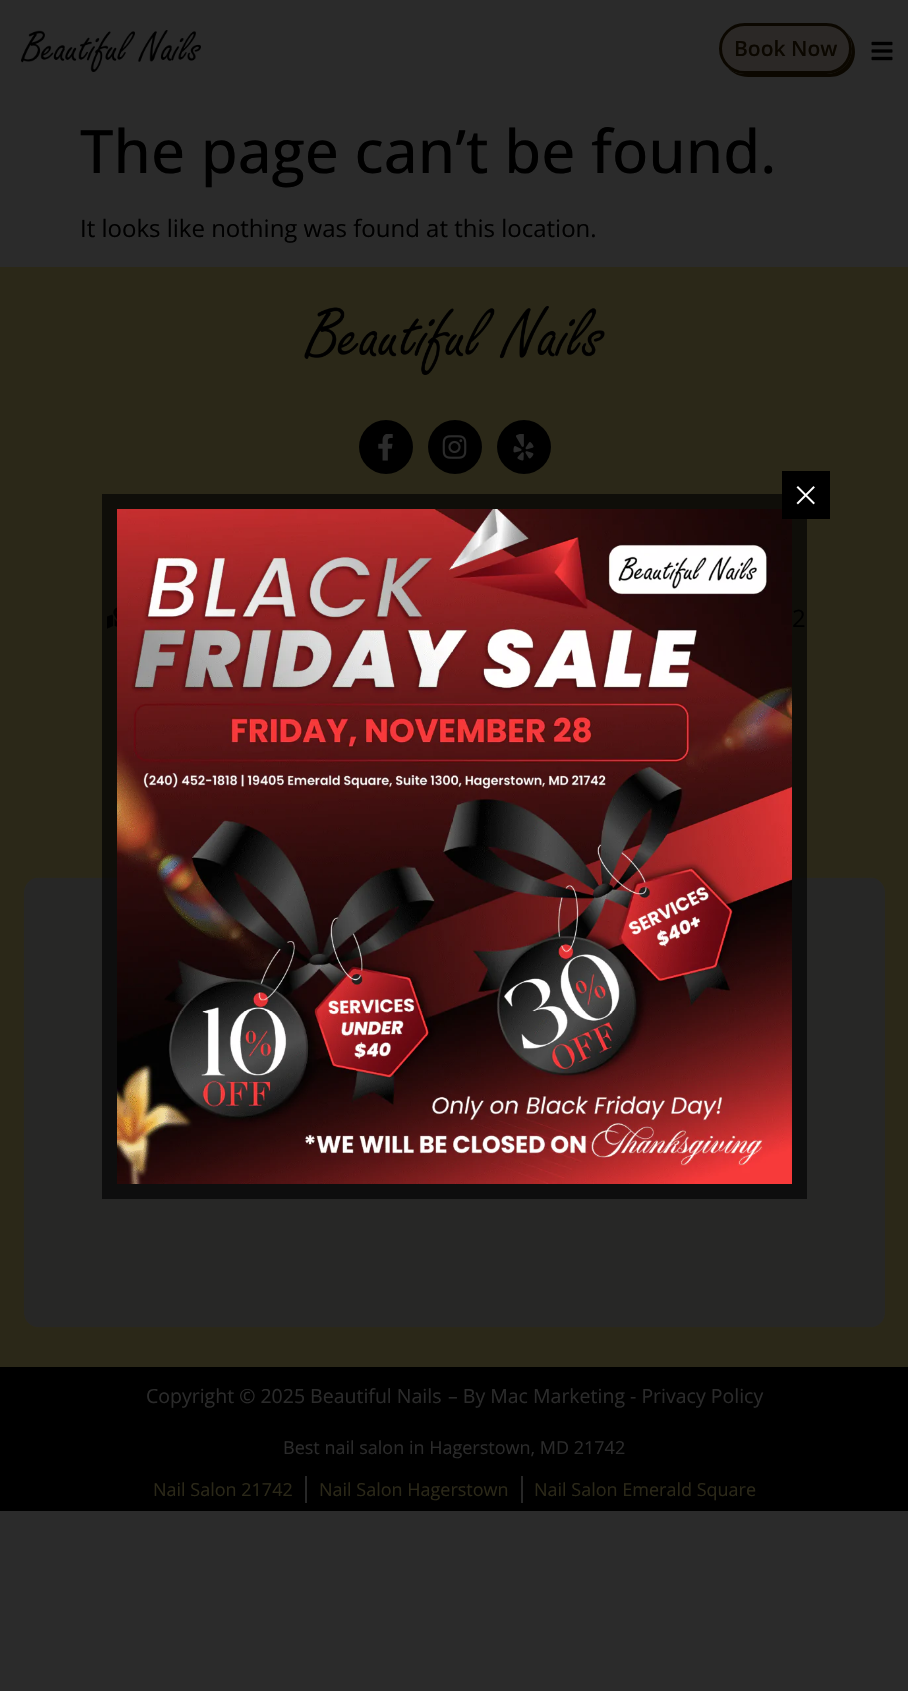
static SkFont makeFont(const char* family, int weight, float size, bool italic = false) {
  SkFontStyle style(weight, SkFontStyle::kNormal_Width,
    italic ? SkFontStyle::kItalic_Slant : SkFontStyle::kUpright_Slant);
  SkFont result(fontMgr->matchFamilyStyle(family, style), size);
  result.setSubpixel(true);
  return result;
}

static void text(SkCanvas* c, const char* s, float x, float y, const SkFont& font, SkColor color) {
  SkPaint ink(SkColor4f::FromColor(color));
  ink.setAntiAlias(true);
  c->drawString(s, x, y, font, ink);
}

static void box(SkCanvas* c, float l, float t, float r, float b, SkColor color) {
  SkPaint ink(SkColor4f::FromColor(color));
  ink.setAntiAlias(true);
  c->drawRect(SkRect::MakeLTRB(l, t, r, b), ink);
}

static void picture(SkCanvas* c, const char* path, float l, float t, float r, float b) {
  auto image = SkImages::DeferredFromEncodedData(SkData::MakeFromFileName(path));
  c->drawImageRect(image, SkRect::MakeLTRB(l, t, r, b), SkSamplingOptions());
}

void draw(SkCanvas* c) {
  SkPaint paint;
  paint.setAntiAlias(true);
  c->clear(0xff2b2b2b);
  picture(c, "img_01.png", 21, 30, 201, 72);
  paint.setColor(0xff0b0700);
  c->drawPath(SkPathBuilder().moveTo(728, 68).cubicTo(732, 73, 740, 77, 748, 77).lineTo(830, 77).cubicTo(844, 77, 855, 66, 855, 52).cubicTo(855, 44, 852, 38, 847, 33).cubicTo(850, 37, 852, 42, 852, 48).cubicTo(852, 62, 841, 74, 826, 74).lineTo(744, 74).cubicTo(738, 74, 732, 71, 728, 68).close().detach(), paint);
  paint.setColor(0xff2b2826);
  c->drawRoundRect(SkRect::MakeLTRB(720.5f, 24.5f, 850.5f, 72.5f), 24, 24, paint);
  paint.setStyle(SkPaint::kStroke_Style);
  paint.setStrokeWidth(3);
  paint.setColor(0xff0b0700);
  c->drawRoundRect(SkRect::MakeLTRB(720.5f, 24.5f, 850.5f, 72.5f), 24, 24, paint);
  SkFont face1 = makeFont("Open Sans", 600, 21);
  text(c, "Book Now", 734, 56, face1, 0xff0b0700);
  picture(c, "img_02.png", 871, 41, 893, 61);
  SkFont face2 = makeFont("Open Sans", 500, 60);
  text(c, "The page can’t be found.", 80, 173, face2, 0xff000000);
  SkFont face3 = makeFont("Open Sans", 400, 24);
  text(c, "It looks like nothing was found at this location.", 80, 237, face3, 0xff000000);
  box(c, 0, 267, 908, 1367, 0xff2b2818);
  picture(c, "img_03.png", 304, 306, 605, 375);
  paint.setStyle(SkPaint::kFill_Style);
  paint.setColor(0xff000000);
  c->drawCircle(386, 447, 27, paint);
  picture(c, "img_04.png", 378, 434, 393, 461);
  c->drawCircle(455, 447, 27, paint);
  picture(c, "img_05.png", 442, 435, 467, 459);
  c->drawCircle(524, 447, 27, paint);
  picture(c, "img_06.png", 513, 434, 534, 461);
  picture(c, "img_07.png", 107, 607, 117, 629);
  text(c, "2", 792, 627, face3, 0xff000000);
  picture(c, "img_08.png", 24, 877, 885, 1328);
  box(c, 0, 1367, 908, 1511, 0xff000000);
  SkFont face4 = makeFont("Open Sans", 400, 19.5f);
  text(c, "Copyright © 2025 Beautiful Nails", 146, 1403, face4, 0xff2b2b2b);
  text(c, "– By Mac Marketing - Privacy Policy", 448, 1403, face4, 0xff2b2b2b);
  SkFont face5 = makeFont("Open Sans", 400, 18);
  text(c, "Best nail salon in Hagerstown, MD 21742", 283, 1454, face5, 0xff2b2b2b);
  text(c, "Nail Salon 21742", 153, 1496, face5, 0xff2b2818);
  box(c, 305, 1476, 307, 1503, 0xff272727);
  text(c, "Nail Salon Hagerstown", 319, 1496, face5, 0xff2b2818);
  box(c, 521, 1476, 523, 1503, 0xff272727);
  text(c, "Nail Salon Emerald Square", 534, 1496, face5, 0xff2b2818);
  box(c, 102, 494, 807, 1199, 0xa6000000);
  picture(c, "img_10.png", 117, 509, 792, 1184);
  box(c, 782, 471, 830, 519, 0xff000000);
  picture(c, "img_09.png", 796, 486, 815, 505);
}
